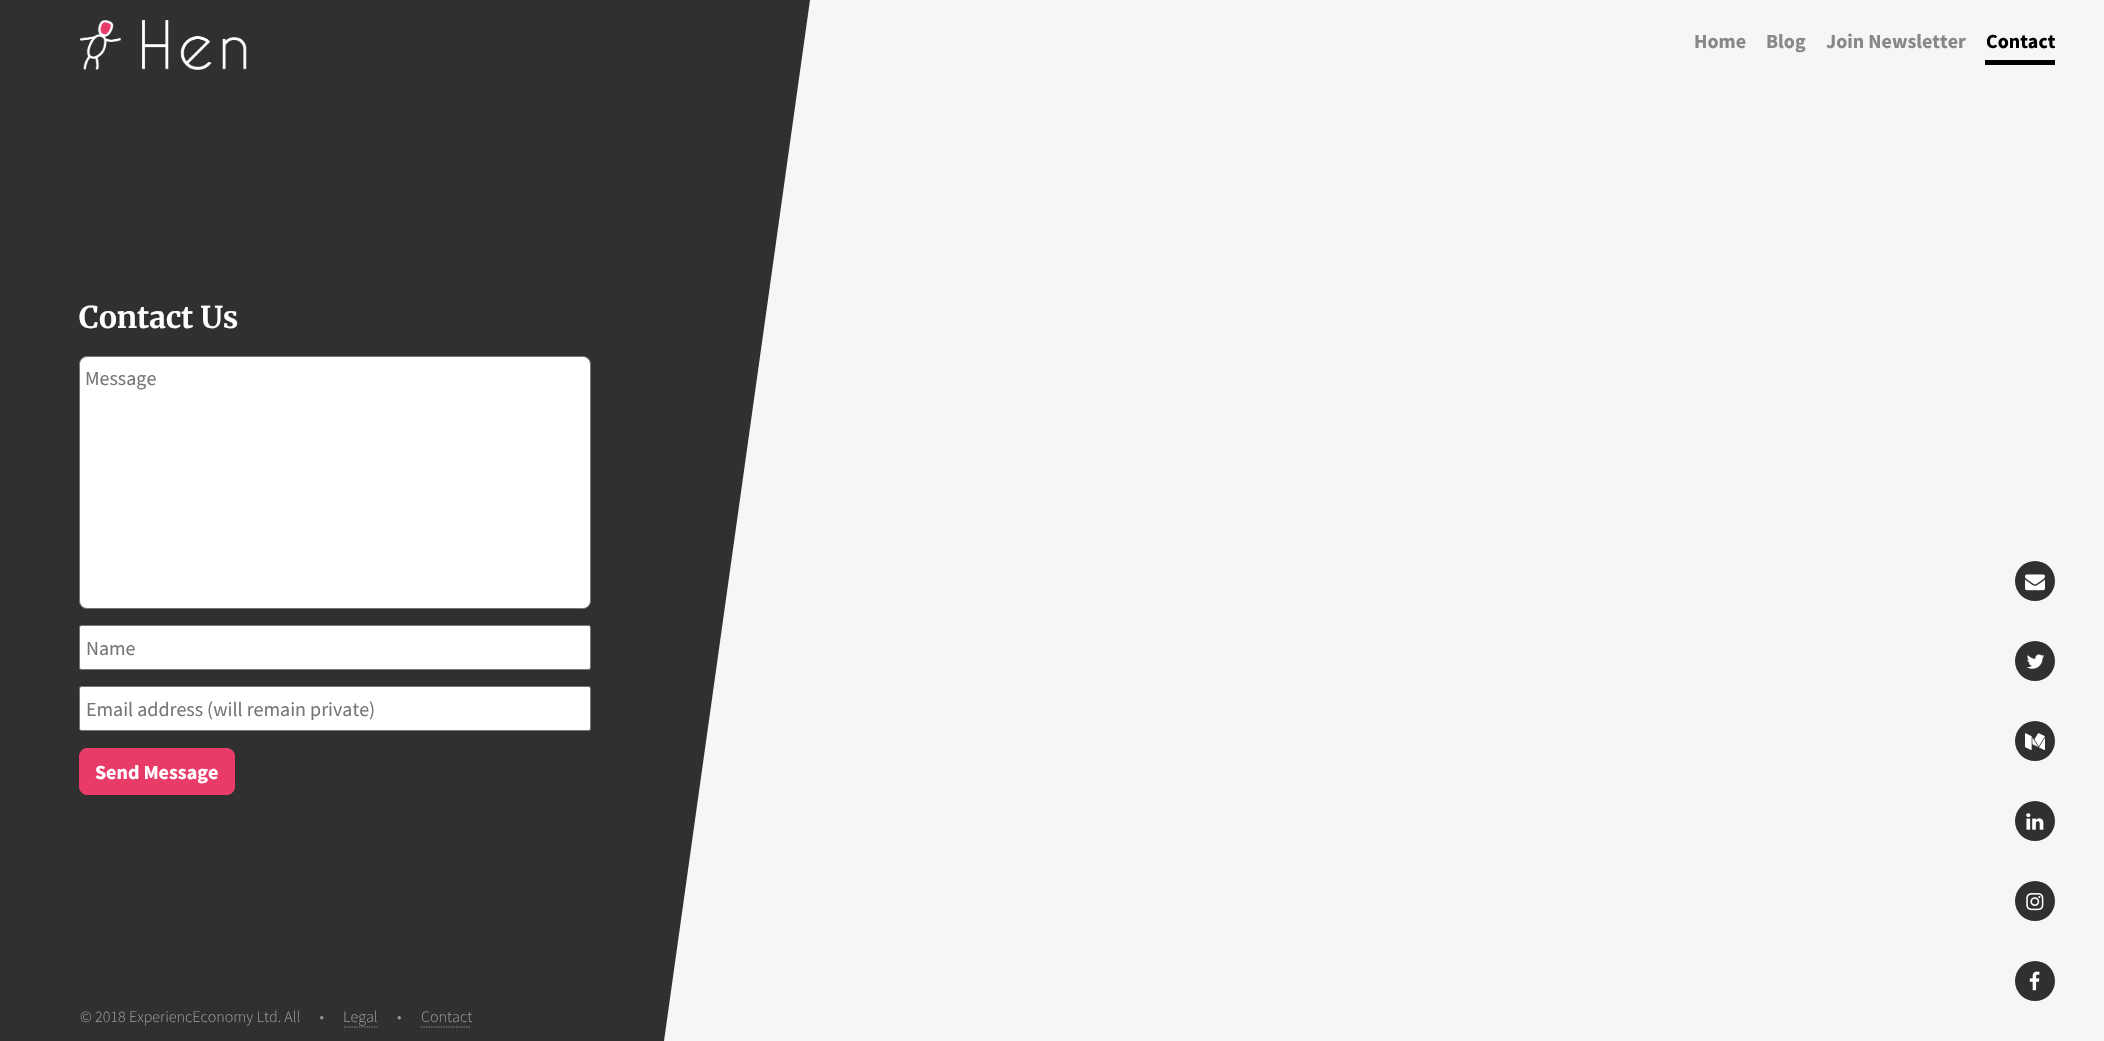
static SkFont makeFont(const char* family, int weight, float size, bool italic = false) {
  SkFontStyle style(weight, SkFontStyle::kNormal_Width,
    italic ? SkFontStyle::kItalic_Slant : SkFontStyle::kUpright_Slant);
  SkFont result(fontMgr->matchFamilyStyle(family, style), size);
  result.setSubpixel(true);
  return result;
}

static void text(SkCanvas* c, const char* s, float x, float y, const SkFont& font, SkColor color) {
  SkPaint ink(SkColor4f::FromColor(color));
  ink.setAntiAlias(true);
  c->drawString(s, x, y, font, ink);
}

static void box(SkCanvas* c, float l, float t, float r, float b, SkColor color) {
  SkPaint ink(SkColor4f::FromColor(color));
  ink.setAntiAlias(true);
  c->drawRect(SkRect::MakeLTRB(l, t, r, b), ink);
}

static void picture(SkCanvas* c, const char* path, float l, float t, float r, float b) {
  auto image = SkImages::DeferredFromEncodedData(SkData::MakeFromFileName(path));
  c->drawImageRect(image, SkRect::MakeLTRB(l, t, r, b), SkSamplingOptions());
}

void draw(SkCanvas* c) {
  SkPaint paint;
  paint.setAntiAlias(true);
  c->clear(0xfff6f6f6);
  paint.setColor(0xff303030);
  c->drawPath(SkPathBuilder().moveTo(0, 0).lineTo(810, 0).lineTo(664, 1041).lineTo(-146, 1041).close().detach(), paint);
  picture(c, "img_01.png", 80, 20, 247, 70);
  SkFont face1 = makeFont("Source Sans Pro", 700, 20);
  text(c, "Home", 1694, 48, face1, 0xff888888);
  text(c, "Blog", 1766, 48, face1, 0xff888888);
  text(c, "Join Newsletter", 1826, 48, face1, 0xff888888);
  box(c, 1985, 60, 2055, 65, 0xff000000);
  text(c, "Contact", 1986, 48, face1, 0xff000000);
  SkFont face2 = makeFont("Merriweather", 700, 30);
  text(c, "Contact Us", 79, 328, face2, 0xffffffff);
  paint.setColor(0xffffffff);
  c->drawRoundRect(SkRect::MakeLTRB(79.5f, 356.5f, 590.5f, 608.5f), 7.5f, 7.5f, paint);
  paint.setStyle(SkPaint::kStroke_Style);
  paint.setStrokeWidth(1);
  paint.setColor(0xff767676);
  c->drawRoundRect(SkRect::MakeLTRB(79.5f, 356.5f, 590.5f, 608.5f), 7.5f, 7.5f, paint);
  SkFont face3 = makeFont("Source Sans Pro", 400, 20);
  text(c, "Message", 85, 385, face3, 0xff757575);
  paint.setStyle(SkPaint::kFill_Style);
  paint.setColor(0xffffffff);
  c->drawRoundRect(SkRect::MakeLTRB(79.5f, 625.5f, 590.5f, 669.5f), 2, 2, paint);
  paint.setStyle(SkPaint::kStroke_Style);
  paint.setColor(0xff767676);
  c->drawRoundRect(SkRect::MakeLTRB(79.5f, 625.5f, 590.5f, 669.5f), 2, 2, paint);
  text(c, "Name", 86, 655, face3, 0xff757575);
  paint.setStyle(SkPaint::kFill_Style);
  paint.setColor(0xffffffff);
  c->drawRoundRect(SkRect::MakeLTRB(79.5f, 686.5f, 590.5f, 730.5f), 2, 2, paint);
  paint.setStyle(SkPaint::kStroke_Style);
  paint.setColor(0xff767676);
  c->drawRoundRect(SkRect::MakeLTRB(79.5f, 686.5f, 590.5f, 730.5f), 2, 2, paint);
  text(c, "Email address (will remain private)", 86, 716, face3, 0xff757575);
  paint.setStyle(SkPaint::kFill_Style);
  paint.setColor(0xffe83b68);
  c->drawRoundRect(SkRect::MakeLTRB(79.5f, 748.5f, 234.5f, 794.5f), 7.5f, 7.5f, paint);
  paint.setStyle(SkPaint::kStroke_Style);
  c->drawRoundRect(SkRect::MakeLTRB(79.5f, 748.5f, 234.5f, 794.5f), 7.5f, 7.5f, paint);
  text(c, "Send Message", 95, 779, face1, 0xffffffff);
  paint.setStyle(SkPaint::kFill_Style);
  paint.setColor(0xff303030);
  c->drawCircle(2035, 581, 20, paint);
  picture(c, "img_02.png", 2025, 574, 2045, 591);
  c->drawCircle(2035, 661, 20, paint);
  picture(c, "img_03.png", 2027, 654, 2045, 669);
  c->drawCircle(2035, 741, 20, paint);
  picture(c, "img_04.png", 2025, 733, 2045, 750);
  c->drawCircle(2035, 821, 20, paint);
  picture(c, "img_05.png", 2026, 813, 2044, 830);
  c->drawCircle(2035, 901, 20, paint);
  picture(c, "img_06.png", 2026, 893, 2044, 911);
  c->drawCircle(2035, 981, 20, paint);
  picture(c, "img_07.png", 2029, 971, 2040, 991);
  SkFont face4 = makeFont("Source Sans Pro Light", 300, 16);
  text(c, "© 2018 ExperiencEconomy Ltd. All      •", 80, 1022, face4, 0xff989898);
  text(c, "Legal", 343, 1022, face4, 0xff989898);
  paint.setStyle(SkPaint::kStroke_Style);
  paint.setStrokeWidth(1.2f);
  paint.setColor(0xff989898);
  paint.setPathEffect(SkDashPathEffect::Make({{1.25f, 1.25f}}, 0));
  c->drawPath(SkPathBuilder().moveTo(344, 1027).lineTo(377.5f, 1027).detach(), paint);
  paint.setPathEffect(nullptr);
  text(c, "•", 397, 1022, face4, 0xff989898);
  text(c, "Contact", 421, 1022, face4, 0xff989898);
  paint.setPathEffect(SkDashPathEffect::Make({{1.25f, 1.25f}}, 0));
  c->drawPath(SkPathBuilder().moveTo(421, 1027).lineTo(471, 1027).detach(), paint);
  paint.setPathEffect(nullptr);
}
